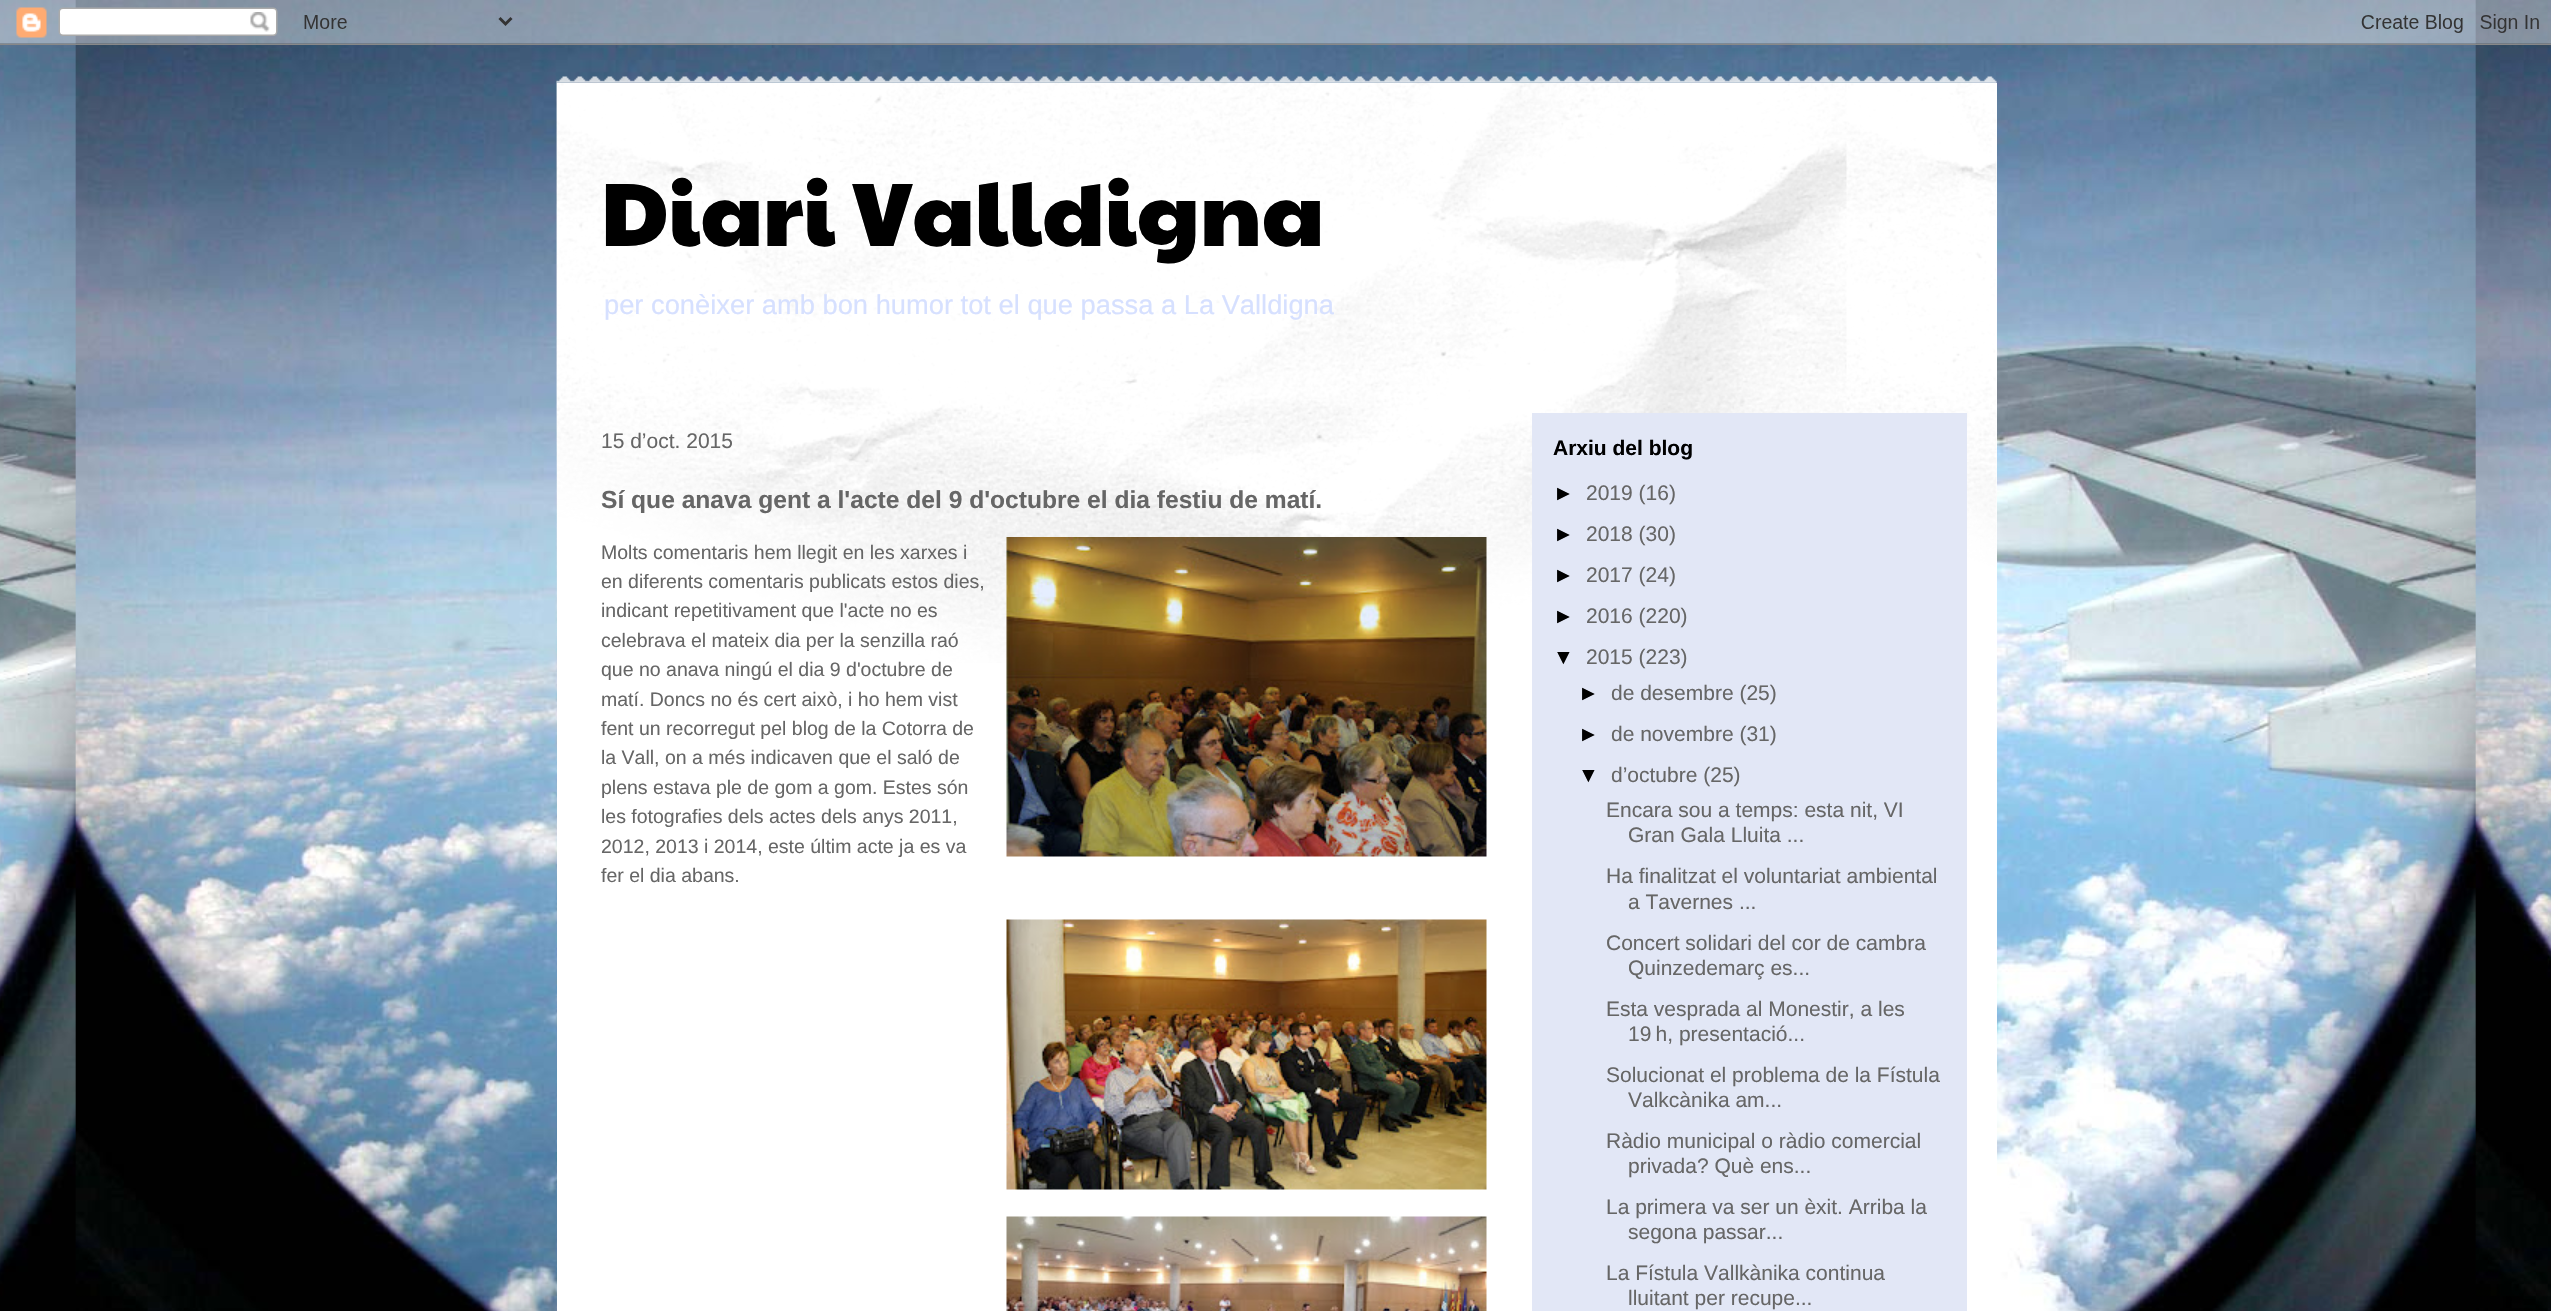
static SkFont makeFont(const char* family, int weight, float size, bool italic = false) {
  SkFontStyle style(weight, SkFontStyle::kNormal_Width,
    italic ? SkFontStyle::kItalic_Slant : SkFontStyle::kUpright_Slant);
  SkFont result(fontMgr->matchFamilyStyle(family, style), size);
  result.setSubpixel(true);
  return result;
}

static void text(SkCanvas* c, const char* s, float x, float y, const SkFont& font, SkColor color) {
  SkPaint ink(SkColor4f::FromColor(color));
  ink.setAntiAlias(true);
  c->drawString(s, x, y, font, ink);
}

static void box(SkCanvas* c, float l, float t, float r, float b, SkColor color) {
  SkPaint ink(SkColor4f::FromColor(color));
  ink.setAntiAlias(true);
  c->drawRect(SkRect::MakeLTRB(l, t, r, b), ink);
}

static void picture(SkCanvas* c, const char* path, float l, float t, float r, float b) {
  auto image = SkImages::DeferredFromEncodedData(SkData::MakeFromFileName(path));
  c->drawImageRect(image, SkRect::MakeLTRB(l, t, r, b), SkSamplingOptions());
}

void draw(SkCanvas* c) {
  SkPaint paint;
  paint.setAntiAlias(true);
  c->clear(0xffffffff);
  picture(c, "img_01.png", 0, 0, 2551, 1311);
  picture(c, "img_02.png", 0, 0, 2551, 45);
  picture(c, "img_03.png", 556, 76, 1997, 83);
  box(c, 557, 83, 1997, 1311, 0xffffffff);
  picture(c, "img_04.png", 556, 82, 1997, 663);
  SkFont face1 = makeFont("Paytone One", 400, 90);
  text(c, "Diari Valldigna", 601, 246, face1, 0xff000000);
  SkFont face2 = makeFont("Liberation Sans", 400, 27.3f);
  text(c, "per conèixer amb bon humor tot el que passa a La Valldigna", 604, 314, face2, 0xffd6e0ff);
  box(c, 1532, 413, 1967, 1311, 0xffe2e7f6);
  SkFont face3 = makeFont("Liberation Sans", 400, 21);
  text(c, "15 d’oct. 2015", 601, 448, face3, 0xff666666);
  SkFont face4 = makeFont("Liberation Sans", 700, 24.6f);
  text(c, "Sí que anava gent a l'acte del 9 d'octubre el dia festiu de matí.", 601, 508, face4, 0xff666666);
  SkFont face5 = makeFont("Liberation Sans", 400, 19.5f);
  text(c, "Molts comentaris hem llegit en les xarxes i", 601, 559, face5, 0xff666666);
  picture(c, "img_05.png", 1006, 537, 1487, 857);
  text(c, "en diferents comentaris publicats estos dies,", 601, 588, face5, 0xff666666);
  text(c, "indicant repetitivament que l'acte no es", 601, 617, face5, 0xff666666);
  text(c, "celebrava el mateix dia per la senzilla raó", 601, 647, face5, 0xff666666);
  text(c, "que no anava ningú el dia 9 d'octubre de", 601, 676, face5, 0xff666666);
  text(c, "matí. Doncs no és cert això, i ho hem vist", 601, 706, face5, 0xff666666);
  text(c, "fent un recorregut pel blog de la Cotorra de", 601, 735, face5, 0xff666666);
  text(c, "la Vall, on a més indicaven que el saló de", 601, 764, face5, 0xff666666);
  text(c, "plens estava ple de gom a gom. Estes són", 601, 794, face5, 0xff666666);
  text(c, "les fotografies dels actes dels anys 2011,", 601, 823, face5, 0xff666666);
  text(c, "2012, 2013 i 2014, este últim acte ja es va", 601, 853, face5, 0xff666666);
  text(c, "fer el dia abans.", 601, 882, face5, 0xff666666);
  picture(c, "img_06.png", 1006, 919, 1487, 1190);
  picture(c, "img_07.png", 1006, 1216, 1487, 1311);
  SkFont face6 = makeFont("Liberation Sans", 700, 21);
  text(c, "Arxiu del blog", 1553, 455, face6, 0xff000000);
  text(c, "►", 1553, 500, face3, 0xff000000);
  text(c, "2019 (16)", 1586, 500, face3, 0xff666666);
  text(c, "►", 1553, 541, face3, 0xff000000);
  text(c, "2018 (30)", 1586, 541, face3, 0xff666666);
  text(c, "►", 1553, 582, face3, 0xff000000);
  text(c, "2017 (24)", 1586, 582, face3, 0xff666666);
  text(c, "►", 1553, 623, face3, 0xff000000);
  text(c, "2016 (220)", 1586, 623, face3, 0xff666666);
  text(c, "▼", 1553, 664, face3, 0xff000000);
  text(c, "2015 (223)", 1586, 664, face3, 0xff666666);
  text(c, "►", 1578, 700, face3, 0xff000000);
  text(c, "de desembre (25)", 1611, 700, face3, 0xff666666);
  text(c, "►", 1578, 741, face3, 0xff000000);
  text(c, "de novembre (31)", 1611, 741, face3, 0xff666666);
  text(c, "▼", 1578, 782, face3, 0xff000000);
  text(c, "d’octubre (25)", 1611, 782, face3, 0xff666666);
  text(c, "Encara sou a temps: esta nit, VI", 1606, 817, face3, 0xff666666);
  text(c, "Gran Gala Lluita ...", 1628, 842, face3, 0xff666666);
  text(c, "Ha finalitzat el voluntariat ambiental", 1606, 883, face3, 0xff666666);
  text(c, "a Tavernes ...", 1628, 909, face3, 0xff666666);
  text(c, "Concert solidari del cor de cambra", 1606, 950, face3, 0xff666666);
  text(c, "Quinzedemarç es...", 1628, 975, face3, 0xff666666);
  text(c, "Esta vesprada al Monestir, a les", 1606, 1016, face3, 0xff666666);
  text(c, "19 h, presentació...", 1628, 1041, face3, 0xff666666);
  text(c, "Solucionat el problema de la Fístula", 1606, 1082, face3, 0xff666666);
  text(c, "Valkcànika am...", 1628, 1107, face3, 0xff666666);
  text(c, "Ràdio municipal o ràdio comercial", 1606, 1148, face3, 0xff666666);
  text(c, "privada? Què ens...", 1628, 1173, face3, 0xff666666);
  text(c, "La primera va ser un èxit. Arriba la", 1606, 1214, face3, 0xff666666);
  text(c, "segona passar...", 1628, 1239, face3, 0xff666666);
  text(c, "La Fístula Vallkànika continua", 1606, 1280, face3, 0xff666666);
  text(c, "lluitant per recupe...", 1628, 1305, face3, 0xff666666);
}
